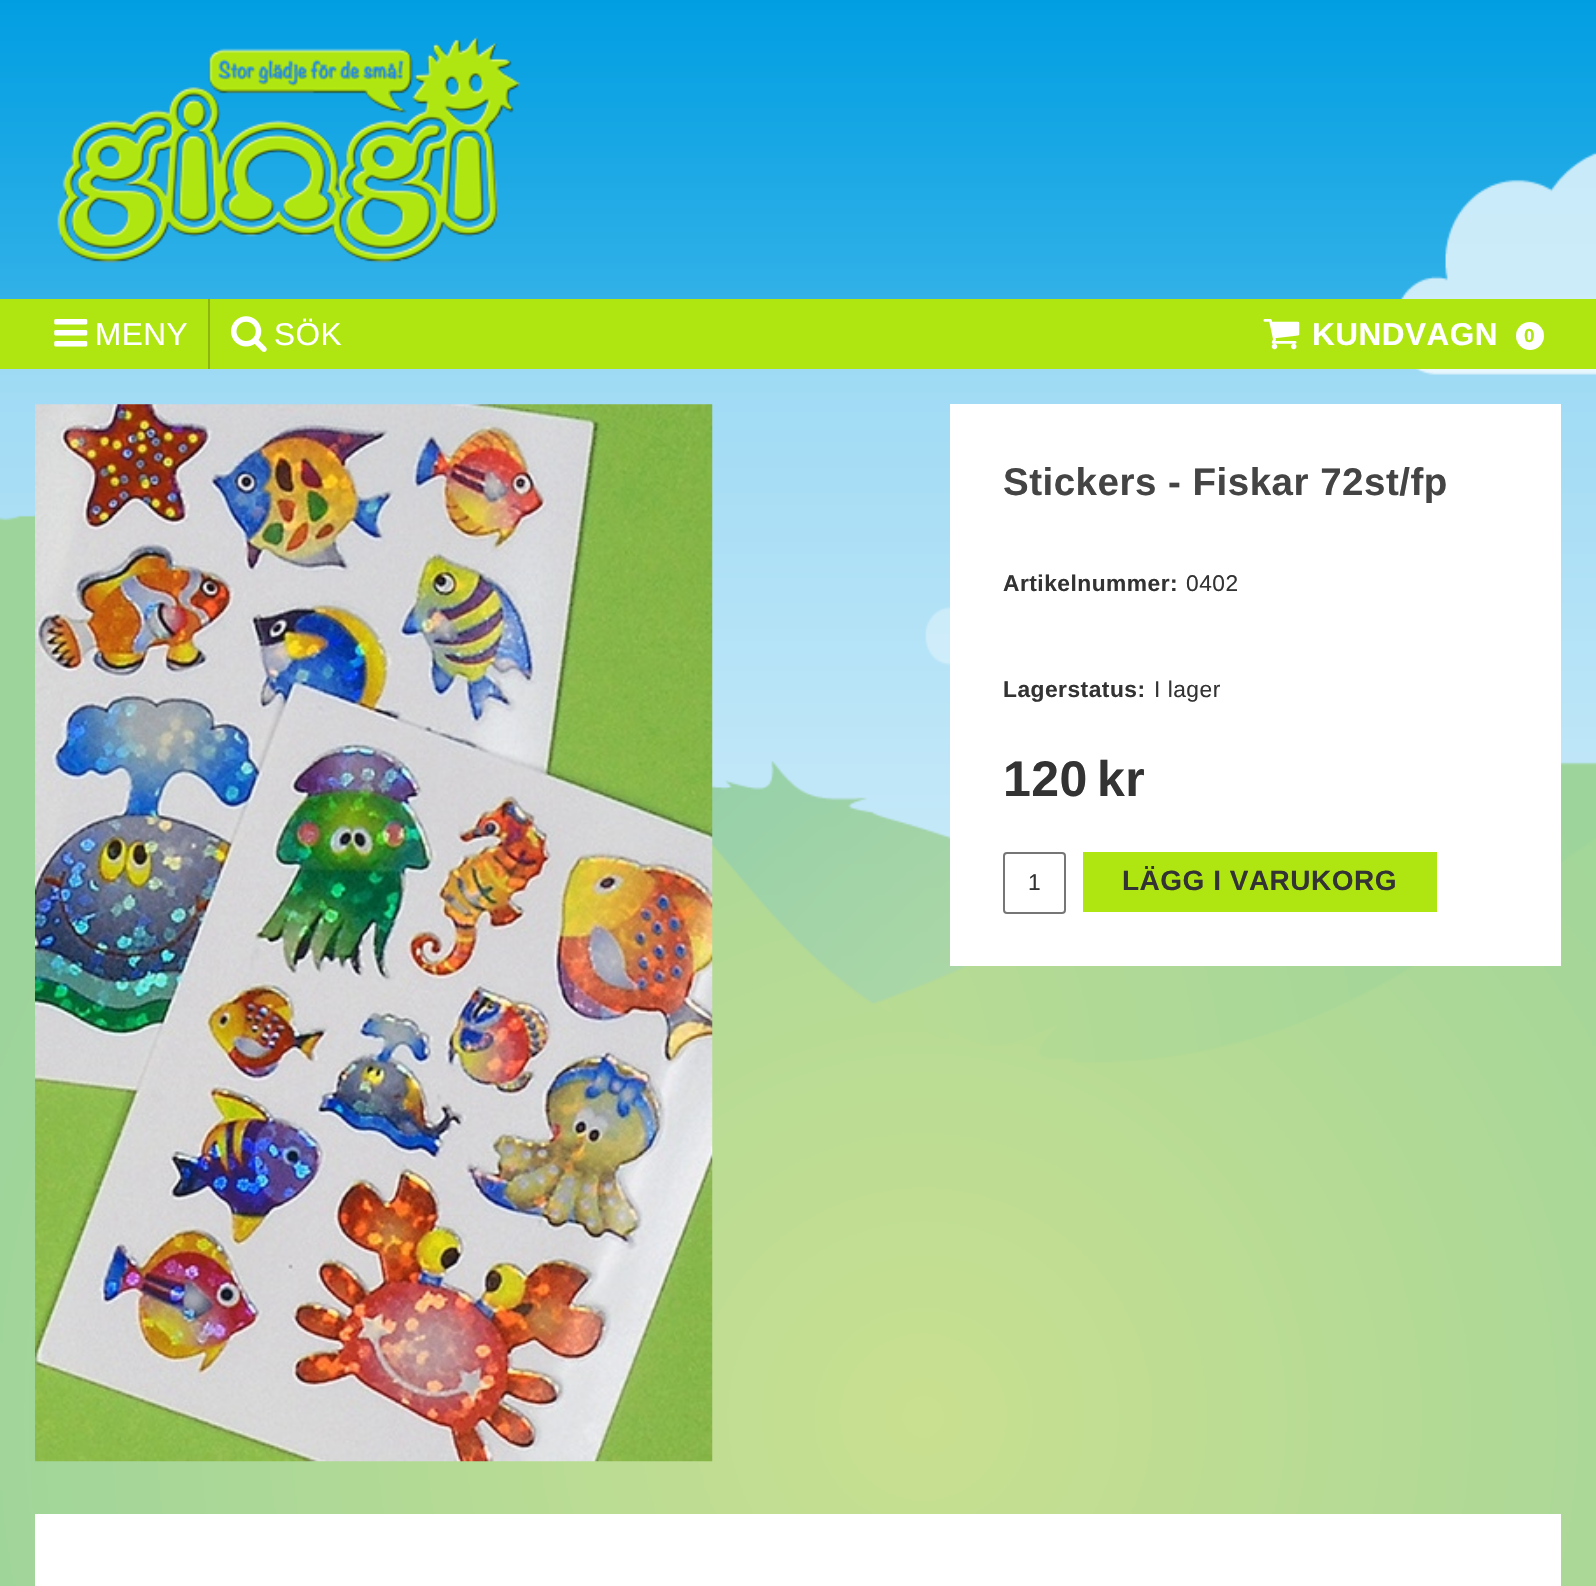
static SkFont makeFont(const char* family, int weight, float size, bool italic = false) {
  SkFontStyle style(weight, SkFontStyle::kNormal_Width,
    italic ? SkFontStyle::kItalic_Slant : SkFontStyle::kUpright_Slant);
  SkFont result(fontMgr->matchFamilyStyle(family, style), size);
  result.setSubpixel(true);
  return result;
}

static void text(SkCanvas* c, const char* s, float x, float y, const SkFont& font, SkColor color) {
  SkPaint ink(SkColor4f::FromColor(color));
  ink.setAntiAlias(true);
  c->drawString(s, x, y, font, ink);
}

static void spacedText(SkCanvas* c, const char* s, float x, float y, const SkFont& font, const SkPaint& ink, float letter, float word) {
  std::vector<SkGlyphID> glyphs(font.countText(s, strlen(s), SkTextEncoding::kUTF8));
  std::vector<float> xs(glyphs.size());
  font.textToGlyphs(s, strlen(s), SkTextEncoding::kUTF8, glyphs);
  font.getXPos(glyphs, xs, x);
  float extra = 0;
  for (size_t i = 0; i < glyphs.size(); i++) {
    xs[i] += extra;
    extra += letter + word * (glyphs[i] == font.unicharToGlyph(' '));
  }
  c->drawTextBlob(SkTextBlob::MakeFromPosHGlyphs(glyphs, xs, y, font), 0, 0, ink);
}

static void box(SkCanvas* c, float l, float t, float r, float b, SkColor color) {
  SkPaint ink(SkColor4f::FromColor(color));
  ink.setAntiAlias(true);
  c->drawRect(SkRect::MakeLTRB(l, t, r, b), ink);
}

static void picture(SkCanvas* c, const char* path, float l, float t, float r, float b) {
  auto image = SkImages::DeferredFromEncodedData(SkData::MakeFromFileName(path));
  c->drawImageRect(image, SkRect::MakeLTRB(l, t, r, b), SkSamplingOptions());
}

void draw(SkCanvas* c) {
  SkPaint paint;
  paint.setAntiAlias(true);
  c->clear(0xffffffff);
  picture(c, "img_01.png", 0, 0, 1596, 1586);
  picture(c, "img_02.png", 57, 36, 521, 263);
  box(c, 0, 299, 1596, 369, 0xffafe612);
  box(c, 208, 299, 210, 369, 0xff8bb70e);
  picture(c, "img_03.png", 54, 319, 88, 347);
  SkFont face1 = makeFont("Liberation Sans", 400, 31.5f);
  paint.setColor(0xffffffff);
  spacedText(c, "MENY", 95, 345, face1, paint, 0.5f, 0);
  picture(c, "img_04.png", 231, 316, 267, 352);
  spacedText(c, "SÖK", 274, 345, face1, paint, 0.5f, 0);
  picture(c, "img_05.png", 1263, 319, 1300, 350);
  SkFont face2 = makeFont("Liberation Sans", 700, 31.5f);
  spacedText(c, "KUNDVAGN", 1312, 345, face2, paint, 0.5f, 0);
  c->drawCircle(1530, 336, 14, paint);
  SkFont face3 = makeFont("Liberation Sans", 700, 19);
  paint.setColor(0xffafe612);
  spacedText(c, "0", 1524, 342, face3, paint, 0.5f, 0);
  box(c, 0, 369, 1596, 1586, 0x80ffffff);
  picture(c, "img_06.png", 35, 404, 713, 1462);
  box(c, 950, 404, 1561, 966, 0xffffffff);
  SkFont face4 = makeFont("Liberation Sans", 700, 38.5f);
  paint.setColor(0xff444444);
  spacedText(c, "Stickers - Fiskar 72st/fp", 1003, 495, face4, paint, 0.5f, 0);
  SkFont face5 = makeFont("Liberation Sans", 700, 22.75f);
  paint.setColor(0xff333333);
  spacedText(c, "Artikelnummer:", 1003, 591, face5, paint, 0.5f, 0);
  SkFont face6 = makeFont("Liberation Sans", 400, 22.75f);
  spacedText(c, "0402", 1186, 591, face6, paint, 0.5f, 0);
  spacedText(c, "Lagerstatus:", 1003, 697, face5, paint, 0.5f, 0);
  spacedText(c, "I lager", 1154, 697, face6, paint, 0.5f, 0);
  SkFont face7 = makeFont("Liberation Sans", 700, 50);
  spacedText(c, "120", 1003, 796, face7, paint, 0.5f, 0);
  spacedText(c, "kr", 1097, 796, face7, paint, 0.5f, 0);
  paint.setStyle(SkPaint::kStroke_Style);
  paint.setStrokeWidth(2);
  paint.setColor(0xff767676);
  c->drawRoundRect(SkRect::MakeLTRB(1004, 853, 1065, 913), 3, 3, paint);
  text(c, "1", 1028, 890, face6, 0xff333333);
  box(c, 1083, 852, 1437, 912, 0xffafe612);
  SkFont face8 = makeFont("Liberation Sans", 700, 28);
  paint.setStyle(SkPaint::kFill_Style);
  paint.setColor(0xff333333);
  spacedText(c, "LÄGG I VARUKORG", 1122, 890, face8, paint, 0.5f, 0);
  box(c, 35, 1514, 1561, 1586, 0xffffffff);
}
